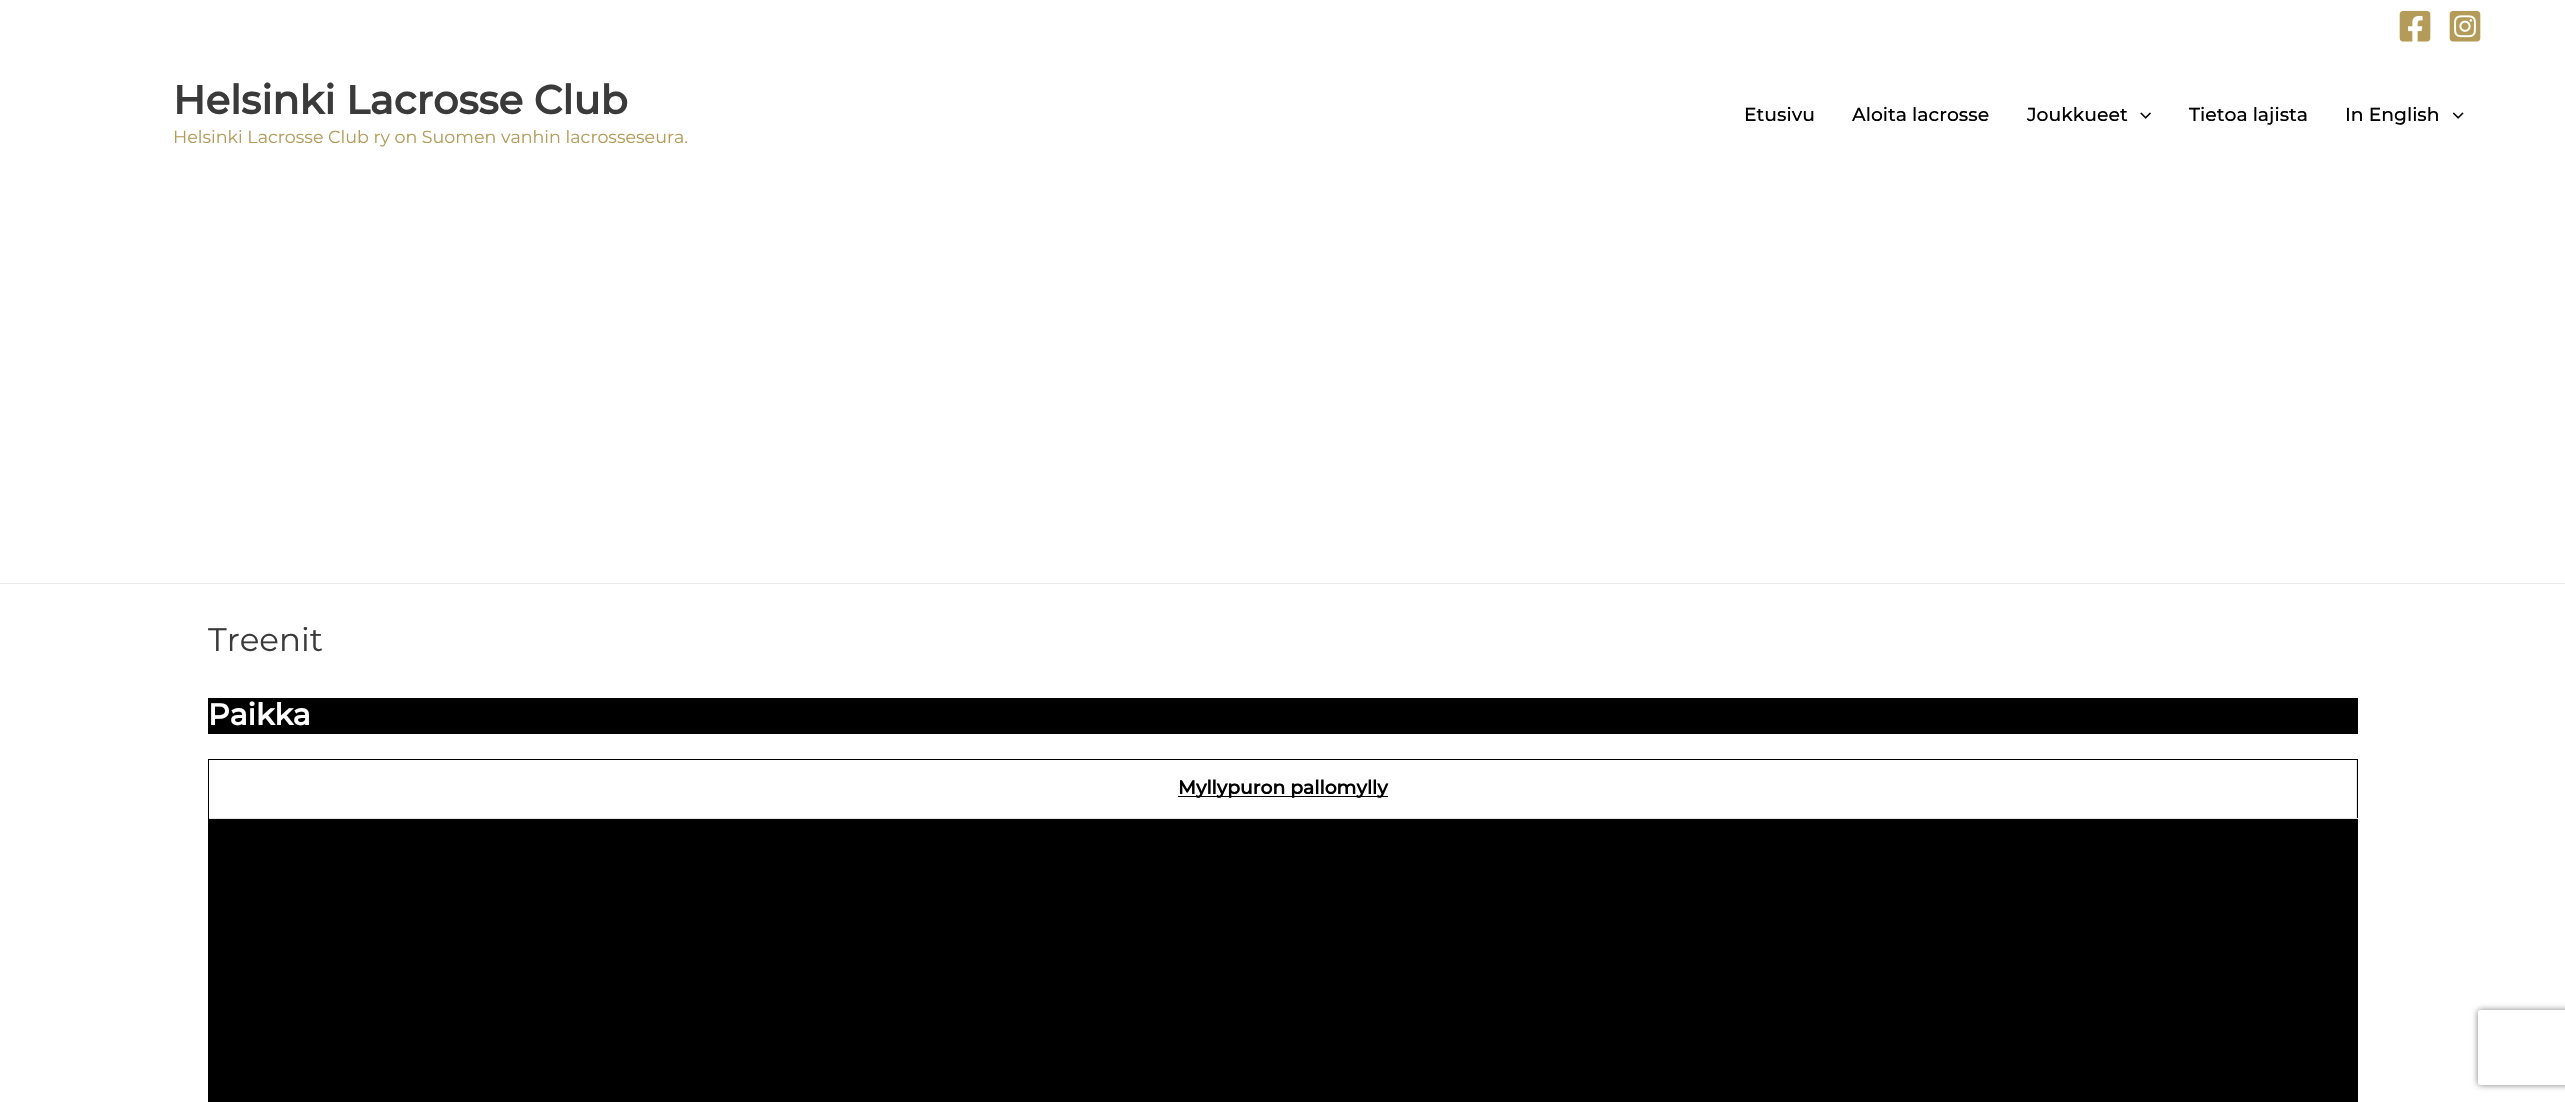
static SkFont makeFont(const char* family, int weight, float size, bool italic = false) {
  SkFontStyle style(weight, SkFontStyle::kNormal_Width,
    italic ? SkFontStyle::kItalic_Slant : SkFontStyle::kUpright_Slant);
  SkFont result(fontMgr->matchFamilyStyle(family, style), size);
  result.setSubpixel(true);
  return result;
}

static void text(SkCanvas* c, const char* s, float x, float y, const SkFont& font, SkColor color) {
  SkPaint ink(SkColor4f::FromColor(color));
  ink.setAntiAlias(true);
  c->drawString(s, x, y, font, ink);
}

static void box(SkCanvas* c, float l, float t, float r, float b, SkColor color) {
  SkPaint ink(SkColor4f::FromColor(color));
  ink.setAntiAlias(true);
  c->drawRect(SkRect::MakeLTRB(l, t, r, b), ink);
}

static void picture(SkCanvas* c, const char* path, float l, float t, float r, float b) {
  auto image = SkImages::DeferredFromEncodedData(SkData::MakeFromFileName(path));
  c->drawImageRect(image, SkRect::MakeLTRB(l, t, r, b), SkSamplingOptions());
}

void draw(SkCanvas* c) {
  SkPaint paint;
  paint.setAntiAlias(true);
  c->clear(0xffffffff);
  picture(c, "img_01.png", 2399, 10, 2431, 42);
  picture(c, "img_02.png", 2449, 10, 2481, 42);
  SkFont face1 = makeFont("Montserrat", 700, 40);
  text(c, "Helsinki Lacrosse Club", 173, 114, face1, 0xff3a3a3a);
  SkFont face2 = makeFont("Montserrat", 400, 17.5f);
  text(c, "Helsinki Lacrosse Club ry on Suomen vanhin lacrosseseura.", 173, 143, face2, 0xffb49b57);
  SkFont face3 = makeFont("Montserrat", 500, 18.75f);
  text(c, "Etusivu", 1744, 121, face3, 0xff000000);
  text(c, "Aloita lacrosse", 1852, 121, face3, 0xff000000);
  text(c, "Joukkueet", 2027, 121, face3, 0xff000000);
  picture(c, "img_03.png", 2140, 112, 2151, 119);
  text(c, "Tietoa lajista", 2189, 121, face3, 0xff000000);
  text(c, "In English", 2345, 121, face3, 0xff000000);
  picture(c, "img_04.png", 2453, 112, 2464, 119);
  box(c, 0, 583, 2565, 584, 0xffeaeaea);
  SkFont face4 = makeFont("Montserrat", 400, 32.5f);
  text(c, "Treenit", 208, 651, face4, 0xff3a3a3a);
  box(c, 208, 698, 2358, 734, 0xff000000);
  SkFont face5 = makeFont("Montserrat", 700, 30);
  text(c, "Paikka", 208, 725, face5, 0xffffffff);
  box(c, 209, 760, 2358, 1102, 0xff000000);
  box(c, 208, 759, 2358, 760, 0xff000000);
  box(c, 208, 759, 209, 1102, 0xff000000);
  box(c, 209, 760, 2356, 818, 0xffffffff);
  box(c, 2356, 760, 2357, 819, 0xffe5e5e5);
  box(c, 209, 818, 2358, 819, 0xffe5e5e5);
  box(c, 1178, 796, 1388, 797, 0xff000000);
  SkFont face6 = makeFont("Montserrat", 700, 18.75f);
  text(c, "Myllypuron pallomylly", 1178, 794, face6, 0xff000000);
  c->save();
  c->clipPath(SkPathBuilder(SkPathFillType::kEvenOdd).moveTo(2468, 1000).lineTo(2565, 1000).lineTo(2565, 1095).lineTo(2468, 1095).close().moveTo(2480.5f, 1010).lineTo(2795.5f, 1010).cubicTo(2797, 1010, 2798, 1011, 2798, 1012.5f).lineTo(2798, 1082.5f).cubicTo(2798, 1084, 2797, 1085, 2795.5f, 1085).lineTo(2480.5f, 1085).cubicTo(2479, 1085, 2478, 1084, 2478, 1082.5f).lineTo(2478, 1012.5f).cubicTo(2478, 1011, 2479, 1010, 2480.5f, 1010).close().detach(), true);
  paint.setColor(0xff808080);
  paint.setMaskFilter(SkMaskFilter::MakeBlur(kNormal_SkBlurStyle, 3));
  c->drawRoundRect(SkRect::MakeLTRB(2478, 1010, 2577, 1085), 2.5f, 2.5f, paint);
  paint.setMaskFilter(nullptr);
  c->restore();
}
